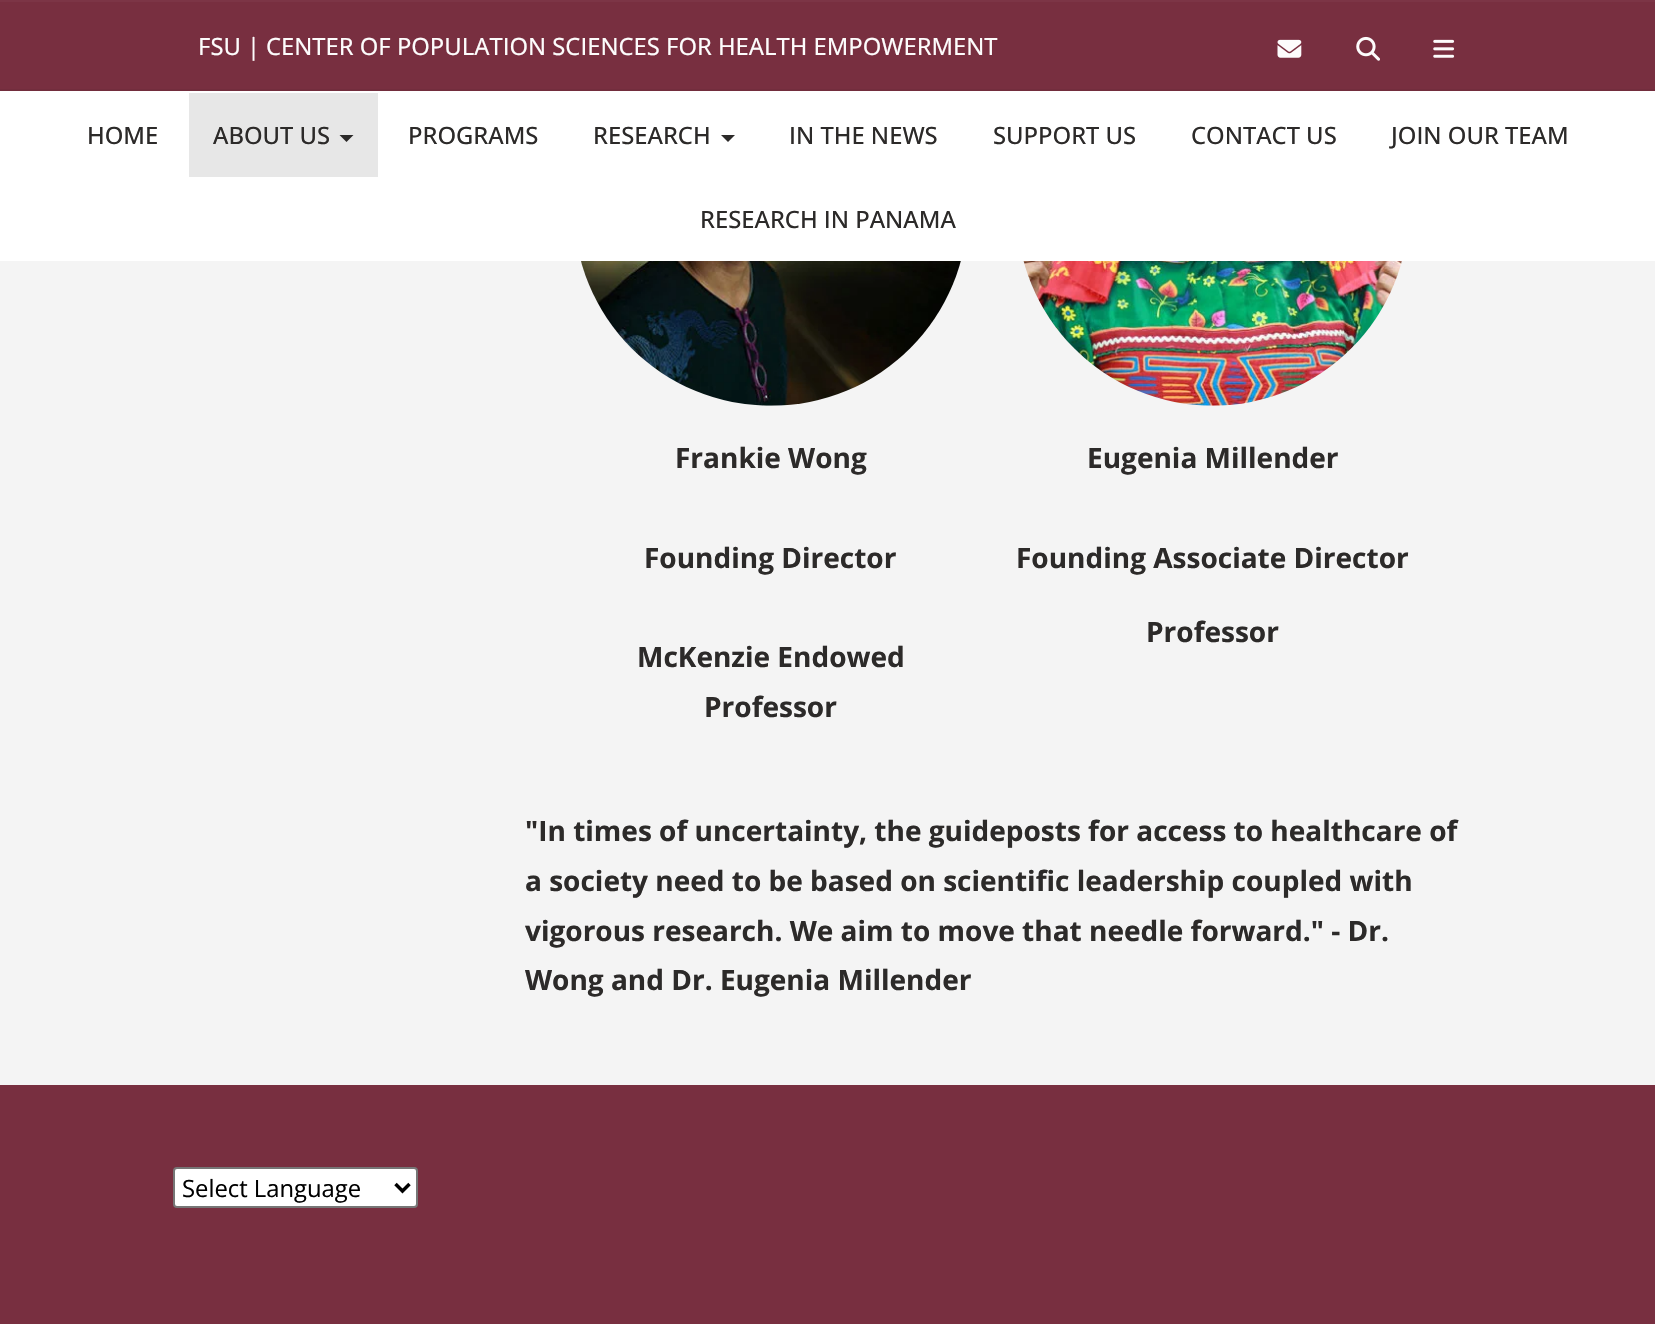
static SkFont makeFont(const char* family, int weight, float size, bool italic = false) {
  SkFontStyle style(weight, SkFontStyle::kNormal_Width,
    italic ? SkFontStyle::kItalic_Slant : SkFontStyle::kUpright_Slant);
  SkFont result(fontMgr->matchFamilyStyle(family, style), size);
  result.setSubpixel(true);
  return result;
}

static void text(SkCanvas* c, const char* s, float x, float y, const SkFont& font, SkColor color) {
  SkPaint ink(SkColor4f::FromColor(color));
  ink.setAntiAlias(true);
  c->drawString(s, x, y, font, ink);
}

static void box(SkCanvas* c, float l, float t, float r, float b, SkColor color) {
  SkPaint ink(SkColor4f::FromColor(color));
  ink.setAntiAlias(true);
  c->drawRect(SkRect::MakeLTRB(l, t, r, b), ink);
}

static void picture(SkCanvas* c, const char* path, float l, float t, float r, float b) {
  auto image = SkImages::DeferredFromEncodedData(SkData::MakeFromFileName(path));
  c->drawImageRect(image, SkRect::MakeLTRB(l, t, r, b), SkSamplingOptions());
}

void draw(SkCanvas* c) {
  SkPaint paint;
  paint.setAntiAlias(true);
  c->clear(0xff782f40);
  box(c, 0, 0, 1655, 2, 0xff7c3546);
  box(c, 0, 89, 1655, 91, 0xff722d3d);
  SkFont face1 = makeFont("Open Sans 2", 400, 23.8f);
  text(c, "FSU", 198, 55, face1, 0xfffdfcfc);
  SkFont face2 = makeFont("Open Sans", 400, 23.8f);
  text(c, "|", 247, 55, face2, 0xfffdfcfc);
  text(c, "CENTER OF POPULATION SCIENCES FOR HEALTH EMPOWERMENT", 266, 55, face1, 0xfffdfcfc);
  picture(c, "img_01.png", 1277, 39, 1302, 58);
  picture(c, "img_02.png", 1356, 36, 1380, 61);
  picture(c, "img_03.png", 1433, 39, 1455, 58);
  box(c, 0, 91, 1655, 261, 0xffffffff);
  SkFont face3 = makeFont("Open Sans", 500, 23.8f);
  text(c, "HOME", 87, 144, face3, 0xff2c2a29);
  box(c, 189, 93, 378, 177, 0xffe7e7e7);
  text(c, "ABOUT US", 213, 144, face3, 0xff2c2a29);
  paint.setColor(0xff2c2a29);
  c->drawPath(SkPathBuilder().moveTo(339.5f, 135).lineTo(353.5f, 135).lineTo(346.5f, 142).close().detach(), paint);
  text(c, "PROGRAMS", 408, 144, face3, 0xff2c2a29);
  text(c, "RESEARCH", 593, 144, face3, 0xff2c2a29);
  c->drawPath(SkPathBuilder().moveTo(721, 135).lineTo(735, 135).lineTo(728, 142).close().detach(), paint);
  text(c, "IN THE NEWS", 789, 144, face3, 0xff2c2a29);
  text(c, "SUPPORT US", 993, 144, face3, 0xff2c2a29);
  text(c, "CONTACT US", 1191, 144, face3, 0xff2c2a29);
  text(c, "JOIN OUR TEAM", 1391, 144, face3, 0xff2c2a29);
  text(c, "RESEARCH IN PANAMA", 700, 228, face3, 0xff2c2a29);
  box(c, 0, 261, 1655, 1085, 0xfff4f4f4);
  picture(c, "img_04.png", 581, 261, 961, 406);
  SkFont face4 = makeFont("Open Sans", 700, 28);
  text(c, "Frankie Wong", 675, 468, face4, 0xff2c2a29);
  text(c, "Founding Director", 644, 568, face4, 0xff2c2a29);
  text(c, "McKenzie Endowed", 637, 667, face4, 0xff2c2a29);
  text(c, "Professor", 704, 717, face4, 0xff2c2a29);
  picture(c, "img_05.png", 1023, 261, 1402, 406);
  text(c, "Eugenia Millender", 1087, 468, face4, 0xff2c2a29);
  text(c, "Founding Associate Director", 1016, 568, face4, 0xff2c2a29);
  text(c, "Professor", 1146, 642, face4, 0xff2c2a29);
  text(c, "\"In times of uncertainty, the guideposts for access to healthcare of", 525, 841, face4, 0xff2c2a29);
  text(c, "a society need to be based on scientific leadership coupled with", 525, 891, face4, 0xff2c2a29);
  text(c, "vigorous research. We aim to move that needle forward.\" - Dr.", 525, 941, face4, 0xff2c2a29);
  text(c, "Wong and Dr. Eugenia Millender", 525, 990, face4, 0xff2c2a29);
  paint.setColor(0xffffffff);
  c->drawRoundRect(SkRect::MakeLTRB(174, 1168, 417, 1207), 3, 3, paint);
  paint.setStyle(SkPaint::kStroke_Style);
  paint.setStrokeWidth(2);
  paint.setColor(0xff767676);
  c->drawRoundRect(SkRect::MakeLTRB(174, 1168, 417, 1207), 3, 3, paint);
  paint.setStrokeWidth(3.5f);
  paint.setColor(0xff000000);
  c->drawPath(SkPathBuilder().moveTo(395.5f, 1184).lineTo(402.5f, 1191).lineTo(409.5f, 1184).detach(), paint);
  text(c, "Select Language", 182, 1197, face2, 0xff000000);
}
